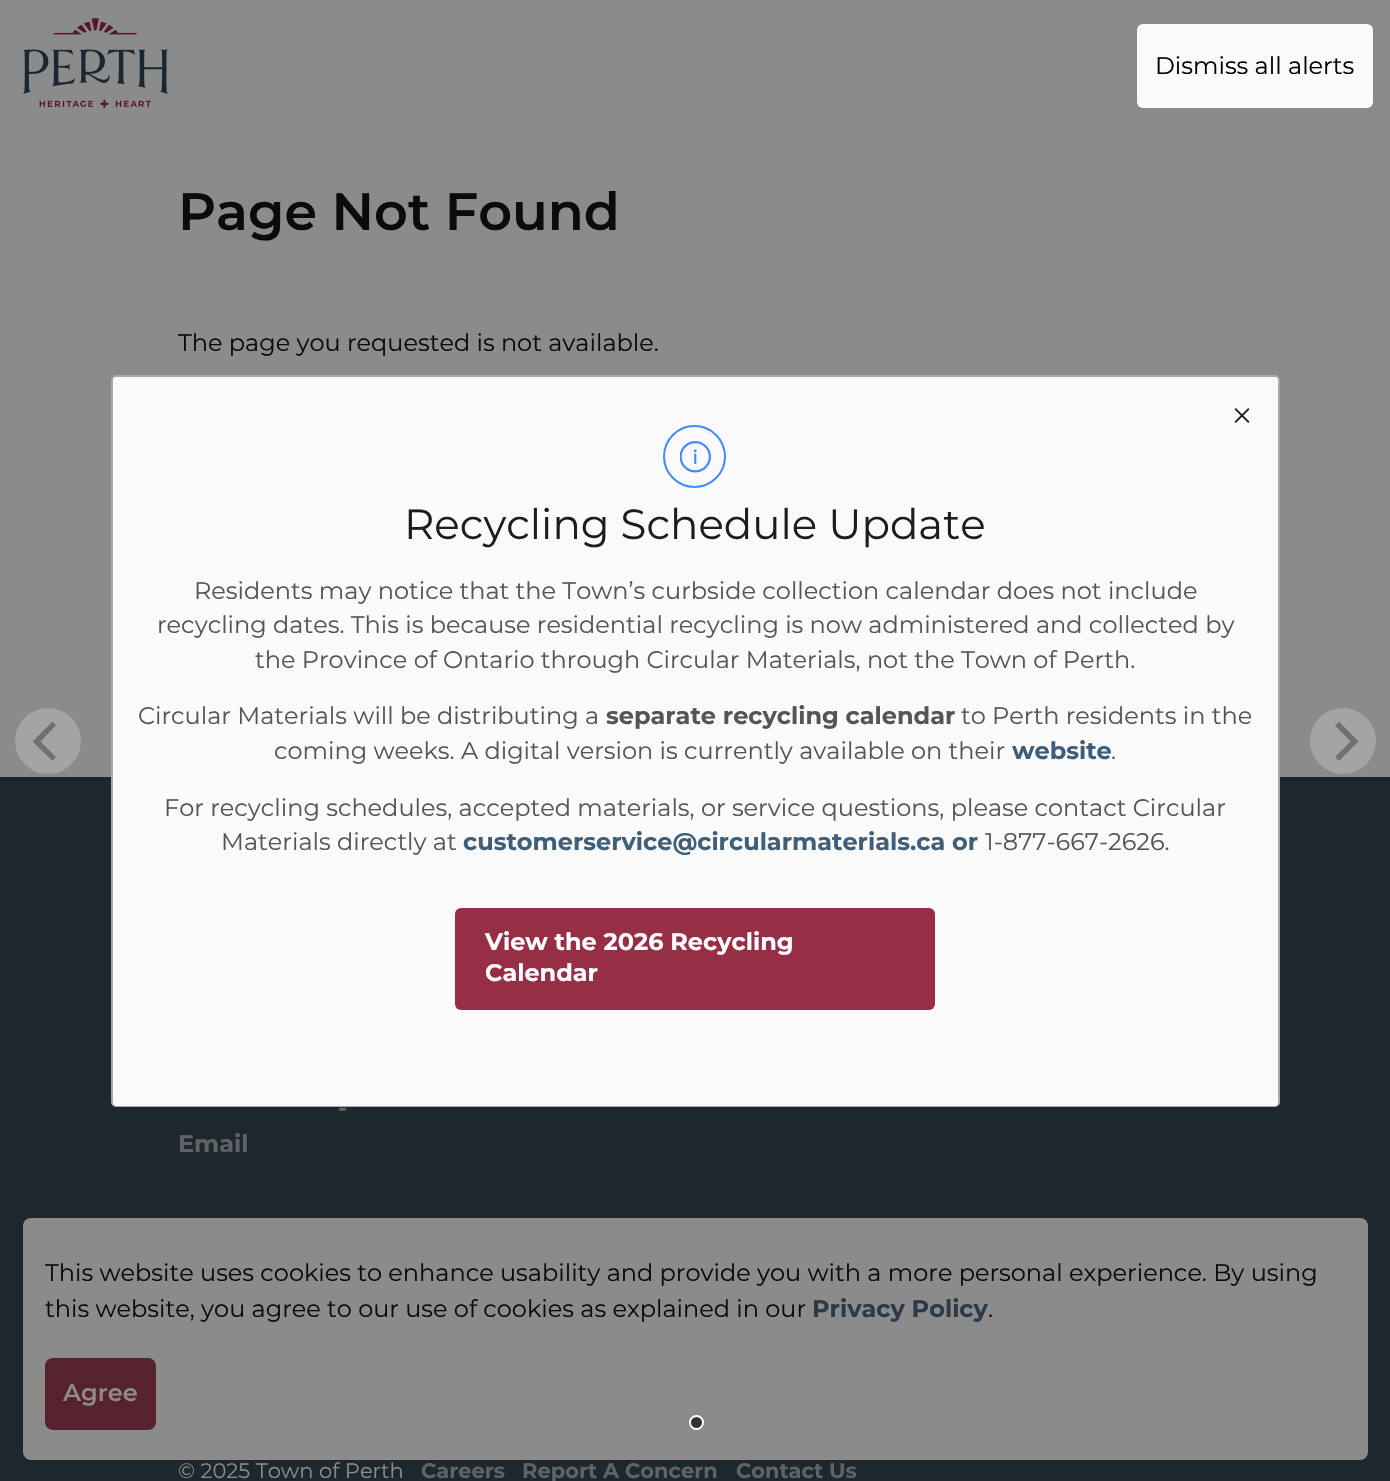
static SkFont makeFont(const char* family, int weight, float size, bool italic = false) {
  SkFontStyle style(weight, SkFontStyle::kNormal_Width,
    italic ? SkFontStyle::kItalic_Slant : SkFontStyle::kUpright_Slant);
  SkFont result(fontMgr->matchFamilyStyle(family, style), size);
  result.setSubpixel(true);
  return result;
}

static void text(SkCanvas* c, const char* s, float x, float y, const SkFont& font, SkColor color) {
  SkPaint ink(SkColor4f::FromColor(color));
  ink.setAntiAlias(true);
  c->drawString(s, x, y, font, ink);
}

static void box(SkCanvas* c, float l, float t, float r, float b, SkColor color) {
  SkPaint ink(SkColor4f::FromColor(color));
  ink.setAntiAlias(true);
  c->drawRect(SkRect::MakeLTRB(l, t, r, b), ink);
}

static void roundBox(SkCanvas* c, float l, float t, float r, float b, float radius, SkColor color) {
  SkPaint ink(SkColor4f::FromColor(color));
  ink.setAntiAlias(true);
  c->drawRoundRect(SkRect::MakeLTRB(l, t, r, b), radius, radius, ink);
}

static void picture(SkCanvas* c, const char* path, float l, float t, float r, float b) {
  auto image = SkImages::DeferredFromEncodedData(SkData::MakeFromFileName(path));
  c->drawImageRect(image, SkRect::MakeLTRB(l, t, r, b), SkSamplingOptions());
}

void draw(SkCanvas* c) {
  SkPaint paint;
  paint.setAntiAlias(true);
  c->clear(0xff8b8b8b);
  roundBox(c, 1137, 24, 1373, 108, 6, 0xfffafafa);
  SkFont face1 = makeFont("Montserrat", 400, 24);
  text(c, "Dismiss all alerts", 1155, 74, face1, 0xff000000);
  paint.setColor(0xffa4a4a4);
  c->drawCircle(48, 741, 33, paint);
  paint.setColor(0xff707070);
  c->drawPath(SkPathBuilder().moveTo(32.5f, 741.5f).lineTo(52.5f, 761).lineTo(56, 757).lineTo(40.5f, 741.5f).lineTo(56, 725.5f).lineTo(52.5f, 721.5f).close().detach(), paint);
  box(c, 0, 777, 1390, 1481, 0xff1d272e);
  paint.setColor(0xfffafafa);
  c->drawRoundRect(SkRect::MakeLTRB(112, 376, 1279, 1106), 4, 4, paint);
  paint.setStyle(SkPaint::kStroke_Style);
  paint.setStrokeWidth(2);
  paint.setColor(0xffa7a9ac);
  c->drawRoundRect(SkRect::MakeLTRB(112, 376, 1279, 1106), 4, 4, paint);
  picture(c, "img_01.png", 1234, 408, 1250, 423);
  picture(c, "img_02.png", 680, 441, 711, 473);
  paint.setColor(0xff4589ff);
  c->drawCircle(694.5f, 456.5f, 30.5f, paint);
  SkFont face2 = makeFont("Montserrat", 400, 42);
  text(c, "Recycling Schedule Update", 404, 539, face2, 0xff1d1d1d);
  text(c, "Residents may notice that the Town’s curbside collection calendar does not include", 194, 599, face1, 0xff555555);
  text(c, "recycling dates. This is because residential recycling is now administered and collected by", 157, 633, face1, 0xff555555);
  text(c, "the Province of Ontario through Circular Materials, not the Town of Perth.", 255, 668, face1, 0xff555555);
  text(c, "Circular Materials will be distributing a", 138, 724, face1, 0xff555555);
  SkFont face3 = makeFont("Montserrat", 700, 24);
  text(c, "separate recycling calendar", 606, 724, face3, 0xff555555);
  text(c, "to Perth residents in the", 961, 724, face1, 0xff555555);
  text(c, "coming weeks. A digital version is currently available on their", 274, 759, face1, 0xff555555);
  text(c, "website", 1012, 759, face3, 0xff3f5e78);
  text(c, ".", 1111, 759, face1, 0xff555555);
  text(c, "For recycling schedules, accepted materials, or service questions, please contact Circular", 164, 816, face1, 0xff555555);
  text(c, "Materials directly at", 221, 850, face1, 0xff555555);
  text(c, "customerservice@circularmaterials.ca or", 463, 850, face3, 0xff3f5e78);
  text(c, "1-877-667-2626.", 985, 850, face1, 0xff555555);
  roundBox(c, 455, 908, 935, 1010, 6, 0xff962e46);
  text(c, "View the 2026 Recycling", 485, 950, face3, 0xffffffff);
  text(c, "Calendar", 485, 981, face3, 0xffffffff);
  paint.setStyle(SkPaint::kFill_Style);
  {
    const SkColor colors[] = {0x00fafafa, 0xfffafafa};
    const float stops[] = {0, 1};
    const SkPoint ends[] = {{695, 1082}, {695, 1106}};
    paint.setShader(SkGradientShader::MakeLinear(ends, colors, stops, 2, SkTileMode::kClamp));
    paint.setAlpha(255);
  }
  c->drawPath(SkPathBuilder().moveTo(113, 1082).lineTo(1278, 1082).lineTo(1278, 1103).cubicTo(1278, 1104.5f, 1276.5f, 1106, 1275, 1106).lineTo(116, 1106).cubicTo(114.5f, 1106, 113, 1104.5f, 113, 1103).close().detach(), paint);
  paint.setShader(nullptr);
  paint.setColor(0xffa4a4a4);
  c->drawCircle(1343, 741, 33, paint);
  paint.setColor(0xff707070);
  c->drawPath(SkPathBuilder().moveTo(1358.5f, 741.5f).lineTo(1339, 721.5f).lineTo(1335, 725.5f).lineTo(1350.5f, 741.5f).lineTo(1335, 757).lineTo(1339, 761).close().detach(), paint);
  roundBox(c, 23, 1218, 1368, 1460, 8, 0xff8b8b8b);
  paint.setColor(0xff333333);
  c->drawCircle(696.5f, 1422.5f, 6.5f, paint);
  paint.setStyle(SkPaint::kStroke_Style);
  paint.setColor(0xffffffff);
  c->drawCircle(696.5f, 1422.5f, 6.5f, paint);
  picture(c, "img_03.png", 23, 18, 168, 108);
  SkFont face4 = makeFont("Montserrat", 600, 52.5f);
  text(c, "Page Not Found", 178, 230, face4, 0xff0b0b0b);
  text(c, "The page you requested is not available.", 178, 351, face1, 0xff0b0b0b);
  text(c, "-", 338, 1116, face3, 0xff5f6366);
  text(c, "Email", 178, 1152, face3, 0xff5f6366);
  SkFont face5 = makeFont("Montserrat", 400, 21);
  text(c, "© 2025 Town of Perth", 178, 1478, face5, 0xff8b8b8b);
  SkFont face6 = makeFont("Montserrat", 700, 21);
  text(c, "Careers", 421, 1478, face6, 0xff5f6366);
  text(c, "Report A Concern", 522, 1478, face6, 0xff5f6366);
  text(c, "Contact Us", 736, 1478, face6, 0xff5f6366);
  text(c, "This website uses cookies to enhance usability and provide you with a more personal experience. By using", 45, 1281, face1, 0xff0b0b0b);
  text(c, "this website, you agree to our use of cookies as explained in our", 45, 1317, face1, 0xff0b0b0b);
  text(c, "Privacy Policy", 812, 1317, face3, 0xff2b3a47);
  text(c, ".", 988, 1317, face1, 0xff0b0b0b);
  roundBox(c, 45, 1358, 156, 1430, 8, 0xff56222e);
  SkFont face7 = makeFont("Montserrat", 600, 24);
  text(c, "Agree", 63, 1401, face7, 0xff8b8b8b);
}
